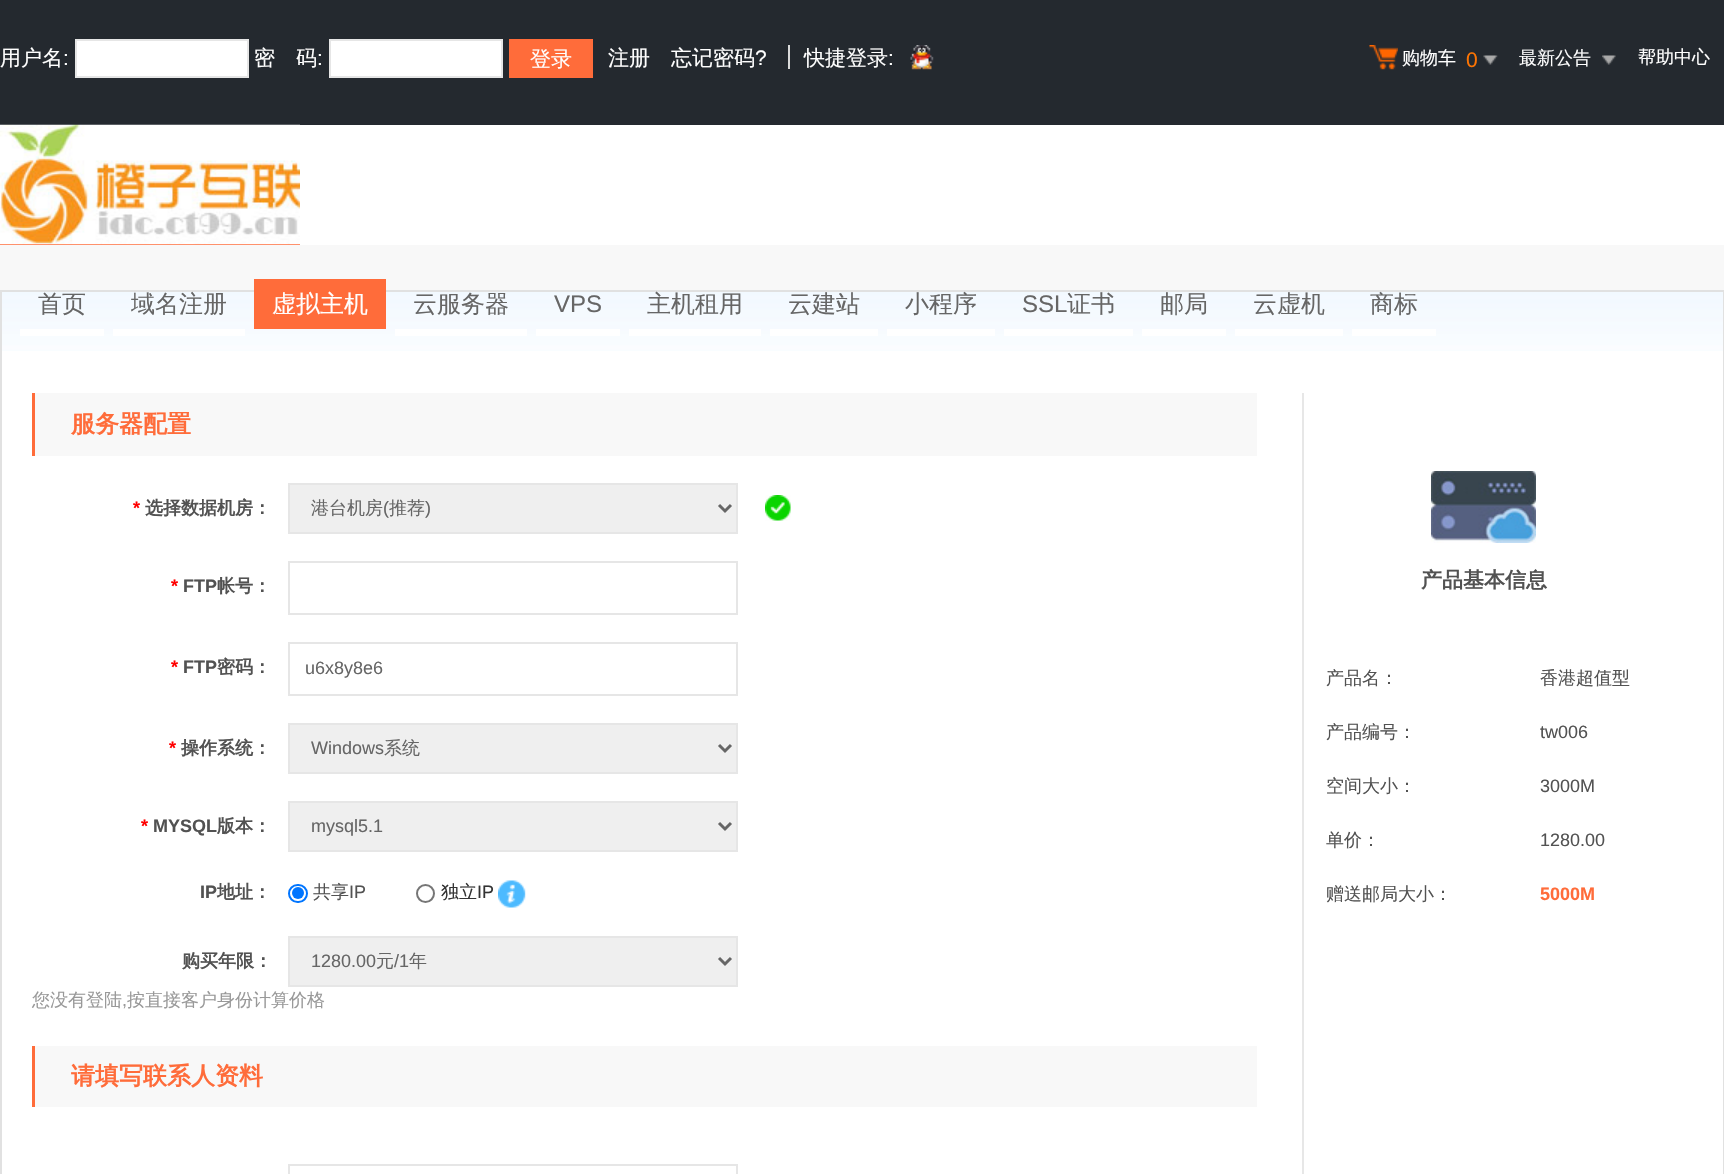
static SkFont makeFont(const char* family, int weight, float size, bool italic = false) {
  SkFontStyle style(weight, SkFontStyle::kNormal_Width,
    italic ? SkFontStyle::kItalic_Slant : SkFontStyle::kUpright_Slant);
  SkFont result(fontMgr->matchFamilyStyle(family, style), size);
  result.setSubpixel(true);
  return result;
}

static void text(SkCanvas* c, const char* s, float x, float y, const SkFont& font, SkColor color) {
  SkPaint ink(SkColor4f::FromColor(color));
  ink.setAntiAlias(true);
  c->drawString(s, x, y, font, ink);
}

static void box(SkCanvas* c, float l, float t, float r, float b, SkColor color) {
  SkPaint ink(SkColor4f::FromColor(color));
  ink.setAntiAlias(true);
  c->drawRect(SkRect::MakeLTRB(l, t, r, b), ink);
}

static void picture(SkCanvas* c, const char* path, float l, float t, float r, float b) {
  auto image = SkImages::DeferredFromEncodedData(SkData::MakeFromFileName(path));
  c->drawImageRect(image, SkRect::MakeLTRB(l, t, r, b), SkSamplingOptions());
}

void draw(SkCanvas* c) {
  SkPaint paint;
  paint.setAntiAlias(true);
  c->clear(0xfff8f8f8);
  box(c, 0, 0, 1724, 125, 0xff24292f);
  SkFont face1 = makeFont("WenQuanYi Zen Hei", 500, 21);
  text(c, "用户名", 0, 65, face1, 0xffffffff);
  SkFont face2 = makeFont("Liberation Sans", 400, 21);
  text(c, ":", 63, 65, face2, 0xffffffff);
  paint.setColor(0xffffffff);
  c->drawRect(SkRect::MakeLTRB(76, 40, 248, 77), paint);
  paint.setStyle(SkPaint::kStroke_Style);
  paint.setStrokeWidth(2);
  paint.setColor(0xffe6e6e6);
  c->drawRect(SkRect::MakeLTRB(76, 40, 248, 77), paint);
  text(c, "密　码", 254, 65, face1, 0xffffffff);
  text(c, ":", 317, 65, face2, 0xffffffff);
  paint.setStyle(SkPaint::kFill_Style);
  paint.setColor(0xffffffff);
  c->drawRect(SkRect::MakeLTRB(330, 40, 502, 77), paint);
  paint.setStyle(SkPaint::kStroke_Style);
  paint.setColor(0xffe6e6e6);
  c->drawRect(SkRect::MakeLTRB(330, 40, 502, 77), paint);
  box(c, 509, 39, 593, 78, 0xffff6c3a);
  text(c, "登录", 530, 66, face1, 0xffffffff);
  text(c, "注册", 608, 65, face1, 0xffffffff);
  text(c, "忘记密码", 671, 65, face1, 0xffffffff);
  text(c, "?", 755, 65, face2, 0xffffffff);
  box(c, 788, 45, 790, 69, 0xffdadada);
  text(c, "快捷登录", 804, 65, face1, 0xffffffff);
  text(c, ":", 888, 65, face2, 0xffffffff);
  picture(c, "img_01.png", 910, 45, 934, 70);
  picture(c, "img_02.png", 1369, 45, 1398, 70);
  SkFont face3 = makeFont("WenQuanYi Zen Hei", 500, 18);
  text(c, "购物车", 1402, 64, face3, 0xffffffff);
  text(c, "0", 1466, 67, face2, 0xfffe7402);
  picture(c, "img_03.png", 1483, 55, 1498, 65);
  text(c, "最新公告", 1519, 64, face3, 0xffffffff);
  picture(c, "img_04.png", 1602, 55, 1616, 65);
  text(c, "帮助中心", 1638, 63, face3, 0xffffffff);
  box(c, 300, 125, 1724, 245, 0xffffffff);
  box(c, 0, 244, 300, 245, 0xffff6c3a);
  picture(c, "img_05.png", 0, 124, 300, 245);
  picture(c, "img_06.png", 2, 292, 1723, 351);
  box(c, 2, 351, 1723, 1174, 0xffffffff);
  paint.setColor(0xffe1e1e1);
  c->drawRect(SkRect::MakeLTRB(1, 291, 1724, 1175), paint);
  SkFont face4 = makeFont("WenQuanYi Zen Hei", 500, 24);
  text(c, "首页", 38, 312, face4, 0xff666666);
  box(c, 20, 329, 104, 336, 0xffffffff);
  text(c, "域名注册", 131, 312, face4, 0xff666666);
  box(c, 113, 329, 245, 336, 0xffffffff);
  box(c, 254, 279, 386, 329, 0xffff6c3a);
  text(c, "虚拟主机", 272, 312, face4, 0xffffffff);
  text(c, "云服务器", 413, 312, face4, 0xff666666);
  box(c, 395, 329, 527, 336, 0xffffffff);
  SkFont face5 = makeFont("Liberation Sans", 400, 24);
  text(c, "VPS", 554, 312, face5, 0xff666666);
  box(c, 536, 329, 620, 336, 0xffffffff);
  text(c, "主机租用", 647, 312, face4, 0xff666666);
  box(c, 629, 329, 761, 336, 0xffffffff);
  text(c, "云建站", 788, 312, face4, 0xff666666);
  box(c, 770, 329, 878, 336, 0xffffffff);
  text(c, "小程序", 905, 312, face4, 0xff666666);
  box(c, 887, 329, 995, 336, 0xffffffff);
  text(c, "SSL", 1022, 312, face5, 0xff666666);
  box(c, 1004, 329, 1133, 336, 0xffffffff);
  text(c, "证书", 1067, 312, face4, 0xff666666);
  text(c, "邮局", 1160, 312, face4, 0xff666666);
  box(c, 1142, 329, 1226, 336, 0xffffffff);
  text(c, "云虚机", 1253, 312, face4, 0xff666666);
  box(c, 1235, 329, 1343, 336, 0xffffffff);
  text(c, "商标", 1370, 312, face4, 0xff666666);
  box(c, 1352, 329, 1436, 336, 0xffffffff);
  box(c, 1302, 393, 1304, 1174, 0xffe7e7e7);
  box(c, 35, 393, 1257, 456, 0xfff8f8f8);
  box(c, 32, 393, 35, 456, 0xffff6c3a);
  SkFont face6 = makeFont("WenQuanYi Zen Hei", 700, 24);
  text(c, "服务器配置", 71, 432, face6, 0xffff6c3a);
  SkFont face7 = makeFont("Liberation Sans", 700, 18);
  text(c, "*", 133, 514, face7, 0xffff0000);
  SkFont face8 = makeFont("WenQuanYi Zen Hei", 700, 18);
  text(c, "选择数据机房：", 145, 514, face8, 0xff525252);
  paint.setStyle(SkPaint::kFill_Style);
  paint.setColor(0xffefefef);
  c->drawRect(SkRect::MakeLTRB(289, 484, 737, 533), paint);
  paint.setStyle(SkPaint::kStroke_Style);
  paint.setColor(0xffe6e6e6);
  c->drawRect(SkRect::MakeLTRB(289, 484, 737, 533), paint);
  paint.setStrokeWidth(3);
  paint.setColor(0xff666666);
  c->drawPath(SkPathBuilder().moveTo(719, 505).lineTo(725, 511).lineTo(731, 505).detach(), paint);
  text(c, "港台机房", 311, 514, face3, 0xff666666);
  SkFont face9 = makeFont("Liberation Sans", 400, 18);
  text(c, "(", 383, 514, face9, 0xff666666);
  text(c, "推荐", 389, 514, face3, 0xff666666);
  text(c, ")", 425, 514, face9, 0xff666666);
  picture(c, "img_07.png", 765, 495, 791, 521);
  text(c, "*", 171, 592, face7, 0xffff0000);
  text(c, "FTP", 183, 592, face7, 0xff525252);
  text(c, "帐号：", 217, 592, face8, 0xff525252);
  paint.setStrokeWidth(2);
  paint.setColor(0xffe6e6e6);
  c->drawRect(SkRect::MakeLTRB(289, 562, 737, 614), paint);
  text(c, "*", 171, 673, face7, 0xffff0000);
  text(c, "FTP", 183, 673, face7, 0xff525252);
  text(c, "密码：", 217, 673, face8, 0xff525252);
  c->drawRect(SkRect::MakeLTRB(289, 643, 737, 695), paint);
  text(c, "u6x8y8e6", 305, 674, face9, 0xff666666);
  text(c, "*", 169, 754, face7, 0xffff0000);
  text(c, "操作系统：", 181, 754, face8, 0xff525252);
  paint.setStyle(SkPaint::kFill_Style);
  paint.setColor(0xffefefef);
  c->drawRect(SkRect::MakeLTRB(289, 724, 737, 773), paint);
  paint.setStyle(SkPaint::kStroke_Style);
  paint.setColor(0xffe6e6e6);
  c->drawRect(SkRect::MakeLTRB(289, 724, 737, 773), paint);
  paint.setStrokeWidth(3);
  paint.setColor(0xff666666);
  c->drawPath(SkPathBuilder().moveTo(719, 745).lineTo(725, 751).lineTo(731, 745).detach(), paint);
  text(c, "Windows", 311, 754, face9, 0xff666666);
  text(c, "系统", 384, 754, face3, 0xff666666);
  text(c, "*", 141, 832, face7, 0xffff0000);
  text(c, "MYSQL", 153, 832, face7, 0xff525252);
  text(c, "版本：", 217, 832, face8, 0xff525252);
  paint.setStyle(SkPaint::kFill_Style);
  paint.setColor(0xffefefef);
  c->drawRect(SkRect::MakeLTRB(289, 802, 737, 851), paint);
  paint.setStyle(SkPaint::kStroke_Style);
  paint.setStrokeWidth(2);
  paint.setColor(0xffe6e6e6);
  c->drawRect(SkRect::MakeLTRB(289, 802, 737, 851), paint);
  paint.setStrokeWidth(3);
  paint.setColor(0xff666666);
  c->drawPath(SkPathBuilder().moveTo(719, 823).lineTo(725, 829).lineTo(731, 823).detach(), paint);
  text(c, "mysql5.1", 311, 832, face9, 0xff666666);
  text(c, "IP", 200, 898, face7, 0xff525252);
  text(c, "地址：", 217, 898, face8, 0xff525252);
  paint.setStrokeWidth(2);
  paint.setColor(0xff0075ff);
  c->drawRoundRect(SkRect::MakeLTRB(289, 885, 307, 902), 8.5f, 8.5f, paint);
  paint.setStyle(SkPaint::kFill_Style);
  c->drawCircle(298, 893, 6, paint);
  text(c, "共享", 313, 898, face3, 0xff525252);
  text(c, "IP", 349, 898, face9, 0xff525252);
  paint.setStyle(SkPaint::kStroke_Style);
  paint.setColor(0xff767676);
  c->drawCircle(425.5f, 893.5f, 8.5f, paint);
  text(c, "独立", 441, 898, face3, 0xff333333);
  text(c, "IP", 477, 898, face9, 0xff333333);
  picture(c, "img_08.png", 498, 880, 526, 908);
  paint.setStyle(SkPaint::kFill_Style);
  paint.setColor(0xffefefef);
  c->drawRect(SkRect::MakeLTRB(289, 937, 737, 986), paint);
  paint.setStyle(SkPaint::kStroke_Style);
  paint.setColor(0xffe6e6e6);
  c->drawRect(SkRect::MakeLTRB(289, 937, 737, 986), paint);
  paint.setStrokeWidth(3);
  paint.setColor(0xff666666);
  c->drawPath(SkPathBuilder().moveTo(719, 958).lineTo(725, 964).lineTo(731, 958).detach(), paint);
  text(c, "1280.00", 311, 967, face9, 0xff666666);
  text(c, "元", 376, 967, face3, 0xff666666);
  text(c, "/1", 394, 967, face9, 0xff666666);
  text(c, "年", 409, 967, face3, 0xff666666);
  text(c, "您没有登陆", 32, 1006, face3, 0xff999999);
  text(c, ",", 122, 1006, face9, 0xff999999);
  text(c, "按直接客户身份计算价格", 127, 1006, face3, 0xff999999);
  text(c, "购买年限：", 182, 967, face8, 0xff525252);
  box(c, 35, 1046, 1257, 1107, 0xfff8f8f8);
  box(c, 32, 1046, 35, 1107, 0xffff6c3a);
  text(c, "请填写联系人资料", 71, 1084, face6, 0xffff6c3a);
  paint.setStrokeWidth(2);
  paint.setColor(0xffe6e6e6);
  c->drawRect(SkRect::MakeLTRB(289, 1165, 737, 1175), paint);
  picture(c, "img_09.png", 1431, 471, 1536, 543);
  SkFont face10 = makeFont("WenQuanYi Zen Hei", 700, 21);
  text(c, "产品基本信息", 1421, 587, face10, 0xff525252);
  text(c, "产品名：", 1326, 684, face3, 0xff525252);
  text(c, "香港超值型", 1540, 684, face3, 0xff525252);
  text(c, "产品编号：", 1326, 738, face3, 0xff525252);
  text(c, "tw006", 1540, 738, face9, 0xff525252);
  text(c, "空间大小：", 1326, 792, face3, 0xff525252);
  text(c, "3000M", 1540, 792, face9, 0xff525252);
  text(c, "单价：", 1326, 846, face3, 0xff525252);
  text(c, "1280.00", 1540, 846, face9, 0xff525252);
  text(c, "赠送邮局大小：", 1326, 900, face3, 0xff525252);
  text(c, "5000M", 1540, 900, face7, 0xffff6c3a);
}
